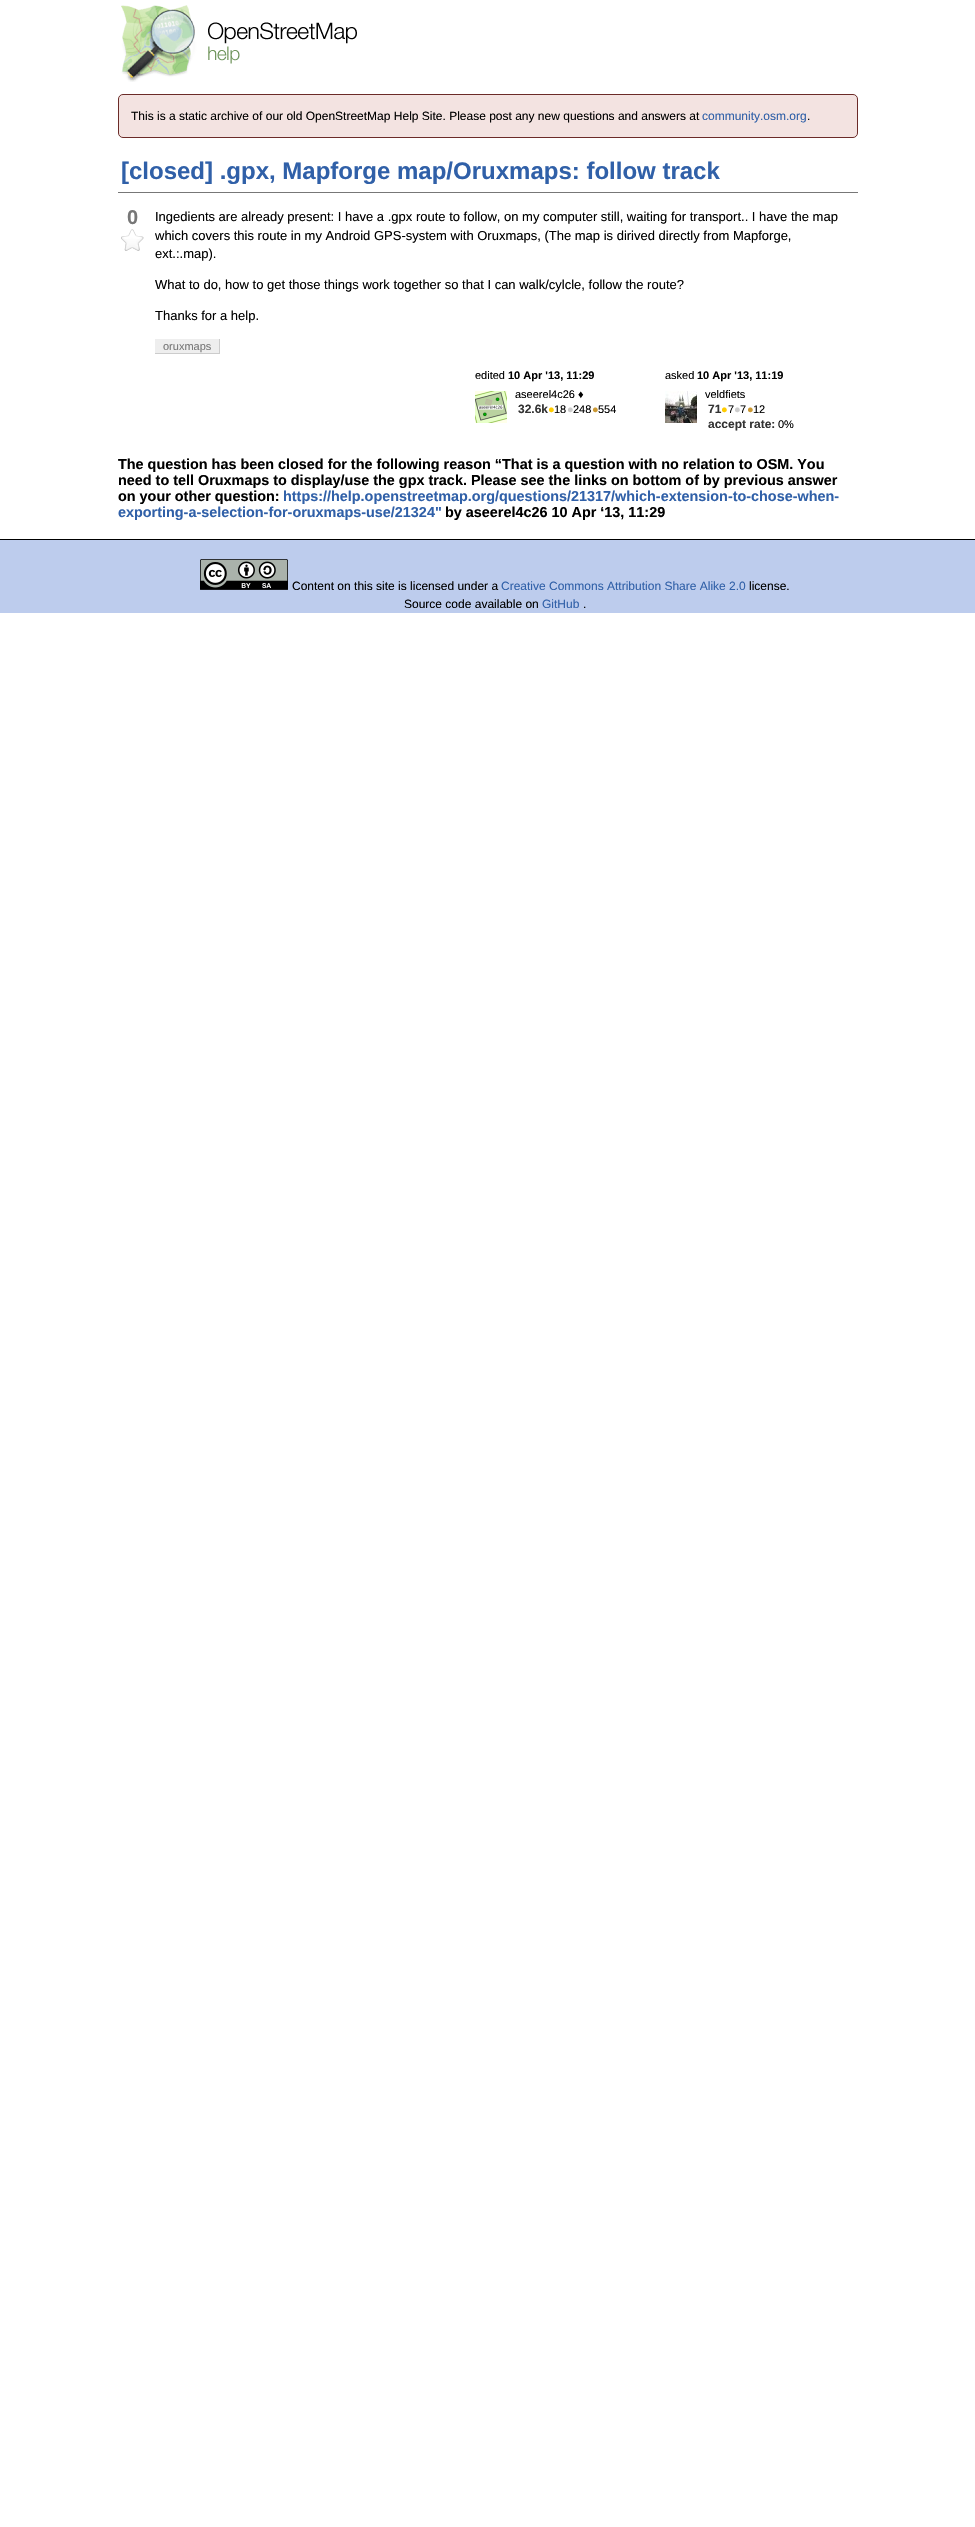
static SkFont makeFont(const char* family, int weight, float size, bool italic = false) {
  SkFontStyle style(weight, SkFontStyle::kNormal_Width,
    italic ? SkFontStyle::kItalic_Slant : SkFontStyle::kUpright_Slant);
  SkFont result(fontMgr->matchFamilyStyle(family, style), size);
  result.setSubpixel(true);
  return result;
}

static void text(SkCanvas* c, const char* s, float x, float y, const SkFont& font, SkColor color) {
  SkPaint ink(SkColor4f::FromColor(color));
  ink.setAntiAlias(true);
  c->drawString(s, x, y, font, ink);
}

static void box(SkCanvas* c, float l, float t, float r, float b, SkColor color) {
  SkPaint ink(SkColor4f::FromColor(color));
  ink.setAntiAlias(true);
  c->drawRect(SkRect::MakeLTRB(l, t, r, b), ink);
}

static void picture(SkCanvas* c, const char* path, float l, float t, float r, float b) {
  auto image = SkImages::DeferredFromEncodedData(SkData::MakeFromFileName(path));
  c->drawImageRect(image, SkRect::MakeLTRB(l, t, r, b), SkSamplingOptions());
}

void draw(SkCanvas* c) {
  SkPaint paint;
  paint.setAntiAlias(true);
  c->clear(0xffffffff);
  picture(c, "img_01.png", 121, 5, 357, 82);
  paint.setColor(0xfff3e3e1);
  c->drawRoundRect(SkRect::MakeLTRB(118.5f, 94.5f, 857.5f, 137.5f), 4.5f, 4.5f, paint);
  paint.setStyle(SkPaint::kStroke_Style);
  paint.setStrokeWidth(1);
  paint.setColor(0xff6b2b28);
  c->drawRoundRect(SkRect::MakeLTRB(118.5f, 94.5f, 857.5f, 137.5f), 4.5f, 4.5f, paint);
  SkFont face1 = makeFont("Liberation Sans", 400, 12);
  text(c, "This is a static archive of our old OpenStreetMap Help Site. Please post any new questions and answers at", 131, 120, face1, 0xff000000);
  text(c, "community.osm.org", 702, 120, face1, 0xff3060a8);
  text(c, ".", 807, 120, face1, 0xff000000);
  box(c, 118, 192, 858, 193, 0xff777777);
  SkFont face2 = makeFont("Liberation Sans", 700, 24);
  text(c, "[closed] .gpx, Mapforge map/Oruxmaps: follow track", 121, 179, face2, 0xff3060a8);
  SkFont face3 = makeFont("Liberation Sans", 700, 20);
  text(c, "0", 127, 224, face3, 0xff777777);
  picture(c, "img_02.png", 121, 229, 144, 251);
  SkFont face4 = makeFont("Liberation Sans", 400, 13);
  text(c, "Ingedients are already present: I have a .gpx route to follow, on my computer still, waiting for transport.. I have the map", 155, 221, face4, 0xff000000);
  text(c, "which covers this route in my Android GPS-system with Oruxmaps, (The map is dirived directly from Mapforge,", 155, 240, face4, 0xff000000);
  text(c, "ext.:.map).", 155, 258, face4, 0xff000000);
  text(c, "What to do, how to get those things work together so that I can walk/cylcle, follow the route?", 155, 289, face4, 0xff000000);
  text(c, "Thanks for a help.", 155, 320, face4, 0xff000000);
  box(c, 155, 339, 219, 353, 0xffeeeeee);
  SkFont face5 = makeFont("Liberation Sans", 400, 11);
  text(c, "oruxmaps", 163, 350, face5, 0xff777777);
  box(c, 219, 339, 220, 354, 0xffcccccc);
  box(c, 155, 353, 220, 354, 0xffcccccc);
  text(c, "edited", 475, 379, face5, 0xff000000);
  SkFont face6 = makeFont("Liberation Sans", 700, 11);
  text(c, "10 Apr '13, 11:29", 508, 379, face6, 0xff000000);
  picture(c, "img_03.png", 475, 391, 507, 423);
  text(c, "aseerel4c26 ♦", 515, 398, face5, 0xff000000);
  SkFont face7 = makeFont("Liberation Sans", 700, 12);
  text(c, "32.6k", 518, 413, face7, 0xff333333);
  text(c, "●", 548, 413, face5, 0xffffcc00);
  text(c, "18", 554, 413, face5, 0xff000000);
  text(c, "●", 567, 413, face5, 0xffcccccc);
  text(c, "248", 573, 413, face5, 0xff000000);
  text(c, "●", 592, 413, face5, 0xffcc9933);
  text(c, "554", 598, 413, face5, 0xff000000);
  text(c, "asked", 665, 379, face5, 0xff000000);
  text(c, "10 Apr '13, 11:19", 697, 379, face6, 0xff000000);
  picture(c, "img_04.png", 665, 391, 697, 423);
  text(c, "veldfiets", 705, 398, face5, 0xff000000);
  text(c, "71", 708, 413, face7, 0xff333333);
  text(c, "●", 721, 413, face5, 0xffffcc00);
  text(c, "7", 728, 413, face5, 0xff000000);
  text(c, "●", 734, 413, face5, 0xffcccccc);
  text(c, "7", 740, 413, face5, 0xff000000);
  text(c, "●", 747, 413, face5, 0xffcc9933);
  text(c, "12", 753, 413, face5, 0xff000000);
  text(c, "accept rate:", 708, 428, face7, 0xff333333);
  text(c, "0%", 778, 428, face5, 0xff000000);
  SkFont face8 = makeFont("Liberation Sans", 700, 14.4f);
  text(c, "The question has been closed for the following reason “That is a question with no relation to OSM. You", 118, 469, face8, 0xff000000);
  text(c, "need to tell Oruxmaps to display/use the gpx track. Please see the links on bottom of by previous answer", 118, 485, face8, 0xff000000);
  text(c, "on your other question:", 118, 501, face8, 0xff000000);
  text(c, "https://help.openstreetmap.org/questions/21317/which-extension-to-chose-when-", 283, 501, face8, 0xff3060a8);
  text(c, "exporting-a-selection-for-oruxmaps-use/21324\"", 118, 517, face8, 0xff3060a8);
  text(c, "by aseerel4c26 10 Apr ‘13, 11:29", 445, 517, face8, 0xff000000);
  box(c, 0, 540, 975, 613, 0xffbdcced);
  box(c, 0, 539, 975, 540, 0xff000000);
  picture(c, "img_05.png", 200, 559, 288, 590);
  text(c, "Content on this site is licensed under a", 292, 590, face1, 0xff000000);
  text(c, "Creative Commons Attribution Share Alike 2.0", 501, 590, face1, 0xff3060a8);
  text(c, "license.", 749, 590, face1, 0xff000000);
  text(c, "Source code available on", 404, 608, face1, 0xff000000);
  text(c, "GitHub", 542, 608, face1, 0xff3060a8);
  text(c, ".", 583, 608, face1, 0xff000000);
}
